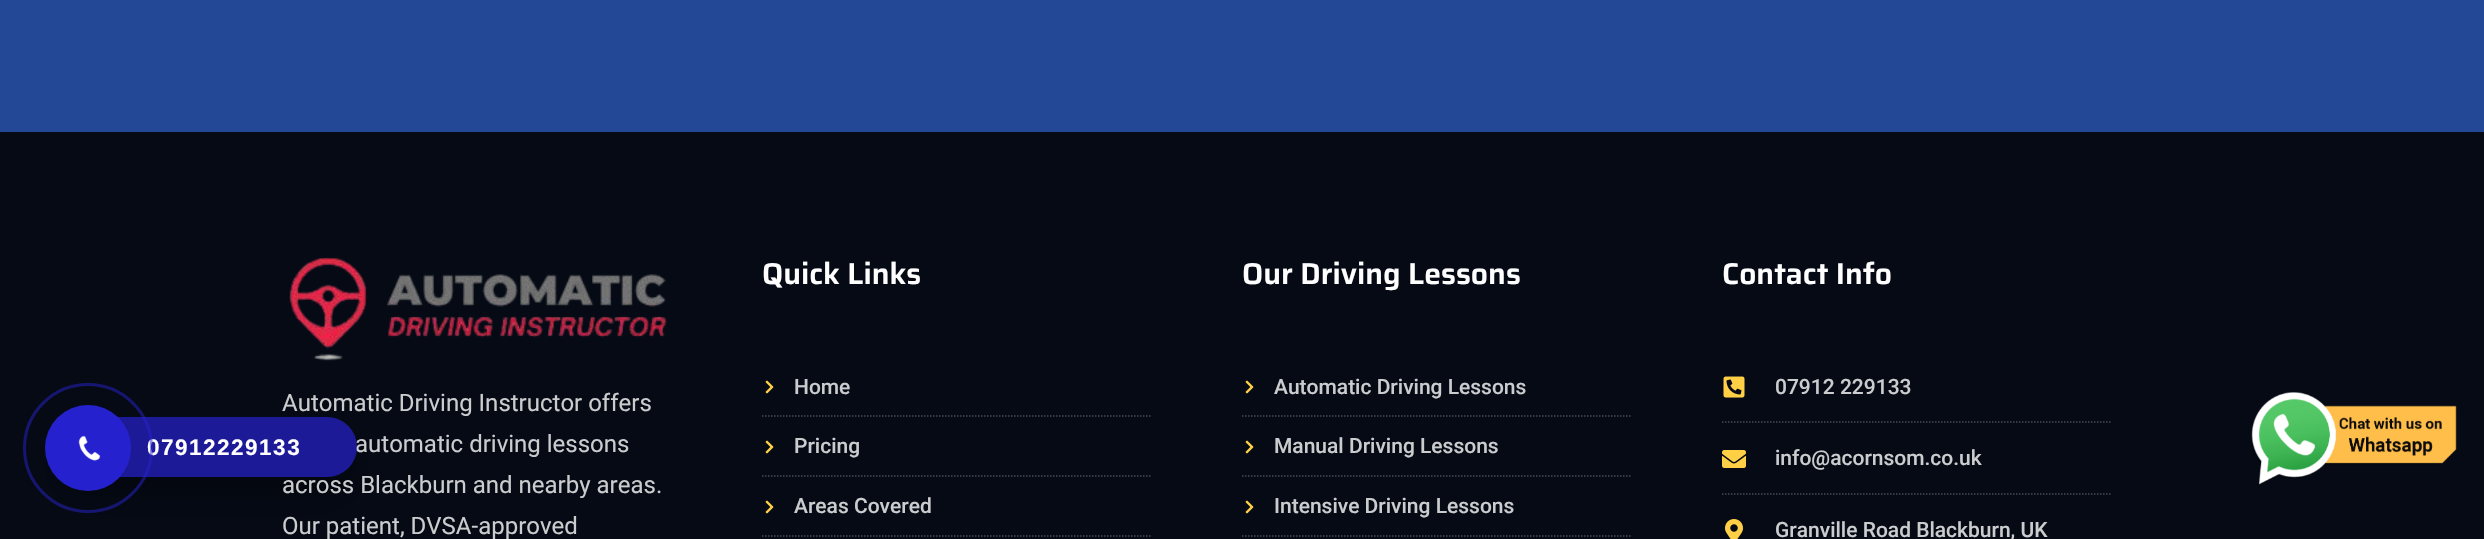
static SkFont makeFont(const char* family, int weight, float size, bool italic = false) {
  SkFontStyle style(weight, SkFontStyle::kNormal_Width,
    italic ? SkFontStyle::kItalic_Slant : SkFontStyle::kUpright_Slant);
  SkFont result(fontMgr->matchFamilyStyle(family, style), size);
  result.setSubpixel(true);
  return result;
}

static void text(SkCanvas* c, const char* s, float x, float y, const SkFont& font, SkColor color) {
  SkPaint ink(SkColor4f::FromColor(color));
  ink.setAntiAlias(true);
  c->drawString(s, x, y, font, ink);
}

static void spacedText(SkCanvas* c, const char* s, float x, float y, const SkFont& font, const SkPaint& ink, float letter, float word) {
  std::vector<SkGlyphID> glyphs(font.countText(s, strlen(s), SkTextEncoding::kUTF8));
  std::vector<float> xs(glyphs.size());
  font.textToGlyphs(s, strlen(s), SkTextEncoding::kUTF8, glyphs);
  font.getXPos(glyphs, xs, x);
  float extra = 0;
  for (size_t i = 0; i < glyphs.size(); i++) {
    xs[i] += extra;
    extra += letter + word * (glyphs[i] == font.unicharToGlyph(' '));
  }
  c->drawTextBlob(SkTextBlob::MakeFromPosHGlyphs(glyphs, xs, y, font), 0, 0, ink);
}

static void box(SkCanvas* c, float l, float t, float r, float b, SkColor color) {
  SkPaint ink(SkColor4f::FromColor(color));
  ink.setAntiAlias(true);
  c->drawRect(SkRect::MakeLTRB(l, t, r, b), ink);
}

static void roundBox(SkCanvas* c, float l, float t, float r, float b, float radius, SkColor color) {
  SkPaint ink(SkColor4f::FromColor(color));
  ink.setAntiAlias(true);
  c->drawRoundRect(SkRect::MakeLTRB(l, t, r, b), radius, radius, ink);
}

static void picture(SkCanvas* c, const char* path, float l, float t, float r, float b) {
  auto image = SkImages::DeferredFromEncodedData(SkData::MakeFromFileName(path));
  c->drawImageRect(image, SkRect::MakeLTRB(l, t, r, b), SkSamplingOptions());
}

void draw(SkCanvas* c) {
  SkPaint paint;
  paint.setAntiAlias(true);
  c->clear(0xff234896);
  box(c, 0, 132, 2484, 539, 0xff050a15);
  c->save();
  c->clipPath(SkPathBuilder(SkPathFillType::kEvenOdd).moveTo(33, 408).lineTo(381, 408).lineTo(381, 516).lineTo(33, 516).close().moveTo(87, 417).lineTo(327, 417).cubicTo(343.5f, 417, 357, 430.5f, 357, 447).cubicTo(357, 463.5f, 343.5f, 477, 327, 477).lineTo(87, 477).cubicTo(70.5f, 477, 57, 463.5f, 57, 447).cubicTo(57, 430.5f, 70.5f, 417, 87, 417).close().detach(), true);
  paint.setColor(0x1a000000);
  paint.setMaskFilter(SkMaskFilter::MakeBlur(kNormal_SkBlurStyle, 7.5f));
  c->drawRoundRect(SkRect::MakeLTRB(57, 432, 357, 492), 30, 30, paint);
  paint.setMaskFilter(nullptr);
  c->restore();
  c->save();
  c->clipPath(SkPathBuilder(SkPathFillType::kEvenOdd).moveTo(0, 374).lineTo(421, 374).lineTo(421, 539).lineTo(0, 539).close().moveTo(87, 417).lineTo(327, 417).cubicTo(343.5f, 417, 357, 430.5f, 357, 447).cubicTo(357, 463.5f, 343.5f, 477, 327, 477).lineTo(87, 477).cubicTo(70.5f, 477, 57, 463.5f, 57, 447).cubicTo(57, 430.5f, 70.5f, 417, 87, 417).close().detach(), true);
  paint.setColor(0x40000000);
  paint.setMaskFilter(SkMaskFilter::MakeBlur(kNormal_SkBlurStyle, 21));
  c->drawRoundRect(SkRect::MakeLTRB(57, 438, 357, 498), 30, 30, paint);
  paint.setMaskFilter(nullptr);
  c->restore();
  SkFont face1 = makeFont("Roboto", 400, 24);
  text(c, "automatic driving lessons", 355, 452, face1, 0xffcbccce);
  text(c, "across Blackburn and nearby areas.", 282, 493, face1, 0xffcbccce);
  roundBox(c, 57, 417, 357, 477, 30, 0xb32621ce);
  SkFont face2 = makeFont("Liberation Sans", 700, 22.5f);
  paint.setColor(0xffffffff);
  spacedText(c, "07912229133", 147, 455, face2, paint, 1.5f, 0);
  paint.setStyle(SkPaint::kStroke_Style);
  paint.setStrokeWidth(3);
  paint.setColor(0x802621ce);
  c->drawCircle(88, 448, 63.5f, paint);
  paint.setStyle(SkPaint::kFill_Style);
  paint.setColor(0xff2621ce);
  c->drawCircle(88, 448, 43, paint);
  picture(c, "img_01.png", 78, 435, 101, 461);
  picture(c, "img_02.png", 289, 257, 667, 361);
  text(c, "Automatic Driving Instructor offers", 282, 411, face1, 0xffcbccce);
  text(c, "Our patient, DVSA-approved", 282, 534, face1, 0xffcbccce);
  SkFont face3 = makeFont("Saira", 600, 30);
  text(c, "Quick Links", 762, 284, face3, 0xffffffff);
  picture(c, "img_03.png", 765, 380, 774, 394);
  SkFont face4 = makeFont("Roboto", 500, 21);
  text(c, "Home", 794, 394, face4, 0xffcbccce);
  paint.setStyle(SkPaint::kStroke_Style);
  paint.setStrokeWidth(1.5f);
  paint.setColor(0xff464a52);
  paint.setPathEffect(SkDashPathEffect::Make({{1.5f, 1.5f}}, 0));
  c->drawPath(SkPathBuilder().moveTo(762, 416).lineTo(1152, 416).detach(), paint);
  paint.setPathEffect(nullptr);
  picture(c, "img_03.png", 765, 440, 774, 454);
  text(c, "Pricing", 794, 453, face4, 0xffcbccce);
  paint.setPathEffect(SkDashPathEffect::Make({{1.5f, 1.5f}}, 0));
  c->drawPath(SkPathBuilder().moveTo(762, 476).lineTo(1152, 476).detach(), paint);
  paint.setPathEffect(nullptr);
  picture(c, "img_03.png", 765, 500, 774, 514);
  text(c, "Areas Covered", 794, 513, face4, 0xffcbccce);
  paint.setPathEffect(SkDashPathEffect::Make({{1.5f, 1.5f}}, 0));
  c->drawPath(SkPathBuilder().moveTo(762, 536).lineTo(1152, 536).detach(), paint);
  paint.setPathEffect(nullptr);
  text(c, "Our Driving Lessons", 1242, 284, face3, 0xffffffff);
  picture(c, "img_03.png", 1245, 380, 1254, 394);
  text(c, "Automatic Driving Lessons", 1274, 394, face4, 0xffcbccce);
  paint.setPathEffect(SkDashPathEffect::Make({{1.5f, 1.5f}}, 0));
  c->drawPath(SkPathBuilder().moveTo(1242, 416).lineTo(1632, 416).detach(), paint);
  paint.setPathEffect(nullptr);
  picture(c, "img_03.png", 1245, 440, 1254, 454);
  text(c, "Manual Driving Lessons", 1274, 453, face4, 0xffcbccce);
  paint.setPathEffect(SkDashPathEffect::Make({{1.5f, 1.5f}}, 0));
  c->drawPath(SkPathBuilder().moveTo(1242, 476).lineTo(1632, 476).detach(), paint);
  paint.setPathEffect(nullptr);
  picture(c, "img_03.png", 1245, 500, 1254, 514);
  text(c, "Intensive Driving Lessons", 1274, 513, face4, 0xffcbccce);
  paint.setPathEffect(SkDashPathEffect::Make({{1.5f, 1.5f}}, 0));
  c->drawPath(SkPathBuilder().moveTo(1242, 536).lineTo(1632, 536).detach(), paint);
  paint.setPathEffect(nullptr);
  text(c, "Contact Info", 1722, 284, face3, 0xffffffff);
  picture(c, "img_04.png", 1723, 376, 1745, 398);
  text(c, "07912 229133", 1775, 394, face4, 0xffcbccce);
  paint.setPathEffect(SkDashPathEffect::Make({{1.5f, 1.5f}}, 0));
  c->drawPath(SkPathBuilder().moveTo(1722, 422).lineTo(2112, 422).detach(), paint);
  paint.setPathEffect(nullptr);
  picture(c, "img_05.png", 1722, 450, 1746, 468);
  text(c, "info@acornsom.co.uk", 1775, 465, face4, 0xffcbccce);
  paint.setPathEffect(SkDashPathEffect::Make({{1.5f, 1.5f}}, 0));
  c->drawPath(SkPathBuilder().moveTo(1722, 494).lineTo(2112, 494).detach(), paint);
  paint.setPathEffect(nullptr);
  picture(c, "img_06.png", 1725, 519, 1743, 539);
  text(c, "Granville Road Blackburn, UK", 1775, 537, face4, 0xffcbccce);
  picture(c, "img_07.png", 2251, 392, 2457, 486);
}
